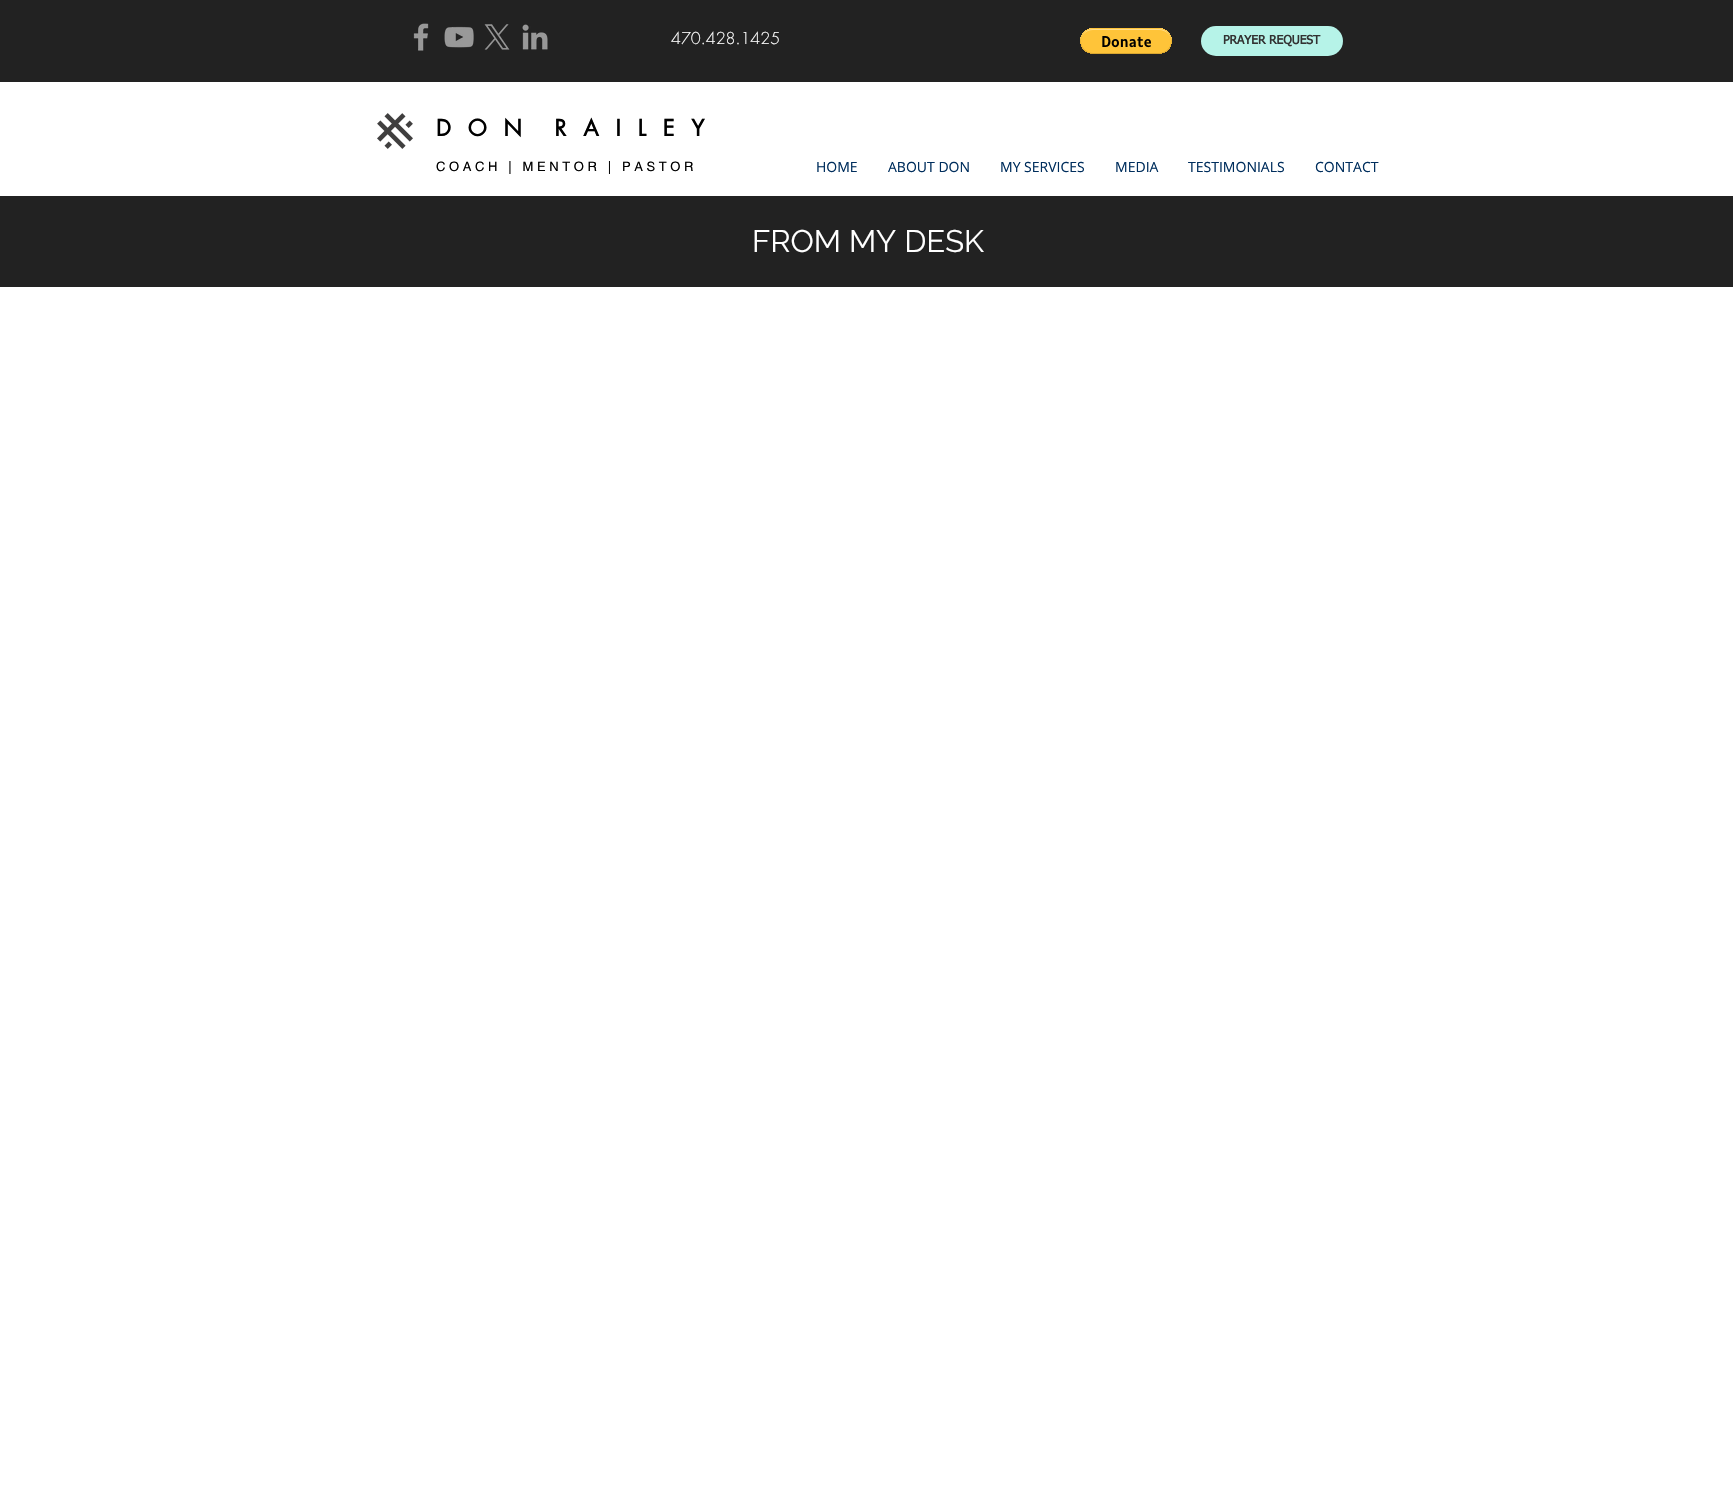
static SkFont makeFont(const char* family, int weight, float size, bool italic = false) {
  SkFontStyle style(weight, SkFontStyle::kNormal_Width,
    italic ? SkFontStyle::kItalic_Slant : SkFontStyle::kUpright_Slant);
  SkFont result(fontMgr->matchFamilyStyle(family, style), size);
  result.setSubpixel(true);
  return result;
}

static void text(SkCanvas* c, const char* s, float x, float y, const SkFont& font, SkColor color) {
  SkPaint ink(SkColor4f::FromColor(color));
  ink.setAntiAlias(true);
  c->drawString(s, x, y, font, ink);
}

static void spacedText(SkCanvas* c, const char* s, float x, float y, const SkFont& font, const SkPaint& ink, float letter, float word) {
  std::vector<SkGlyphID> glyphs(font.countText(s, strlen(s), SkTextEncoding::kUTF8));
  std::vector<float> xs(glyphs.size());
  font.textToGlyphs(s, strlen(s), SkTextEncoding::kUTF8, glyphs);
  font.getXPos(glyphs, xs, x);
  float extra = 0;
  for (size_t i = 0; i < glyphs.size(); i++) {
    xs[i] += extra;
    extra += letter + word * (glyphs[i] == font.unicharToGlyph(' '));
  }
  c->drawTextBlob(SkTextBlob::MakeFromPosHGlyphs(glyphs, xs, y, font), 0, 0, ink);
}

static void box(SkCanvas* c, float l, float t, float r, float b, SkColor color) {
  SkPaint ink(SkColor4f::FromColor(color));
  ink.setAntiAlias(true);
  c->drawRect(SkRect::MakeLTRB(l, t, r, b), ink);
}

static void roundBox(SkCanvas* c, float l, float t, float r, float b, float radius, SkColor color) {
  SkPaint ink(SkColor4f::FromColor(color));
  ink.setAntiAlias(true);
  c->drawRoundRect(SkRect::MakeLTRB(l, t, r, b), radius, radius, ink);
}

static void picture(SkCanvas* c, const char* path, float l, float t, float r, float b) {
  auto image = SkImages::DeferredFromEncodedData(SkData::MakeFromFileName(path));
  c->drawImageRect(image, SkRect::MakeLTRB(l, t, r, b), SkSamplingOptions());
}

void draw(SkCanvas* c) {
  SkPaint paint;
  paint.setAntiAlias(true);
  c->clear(0xffffffff);
  box(c, 0, 0, 1733, 82, 0xff222222);
  picture(c, "img_01.png", 413, 23, 429, 51);
  picture(c, "img_02.png", 444, 26, 474, 48);
  picture(c, "img_03.png", 484, 24, 510, 50);
  picture(c, "img_04.png", 522, 24, 548, 50);
  SkFont face1 = makeFont("futura", 300, 16);
  text(c, "470.428.1425", 671, 44, face1, 0xffffffff);
  picture(c, "img_05.png", 1080, 28, 1172, 54);
  roundBox(c, 1201, 26, 1343, 56, 15, 0xffb6f3e8);
  SkFont face2 = makeFont("tahoma", 700, 12);
  text(c, "PRAYER REQUEST", 1223, 44, face2, 0xff323232);
  picture(c, "img_06.png", 377, 113, 413, 149);
  SkFont face3 = makeFont("futura", 700, 22);
  paint.setColor(0xff000000);
  spacedText(c, "D  O  N    R  A  I  L  E  Y", 436, 136, face3, paint, 1.1f, 0);
  SkFont face4 = makeFont("helvetica", 400, 13);
  text(c, "C O A C H   |   M E N T O R   |   P A S T O R", 436, 171, face4, 0xff000000);
  SkFont face5 = makeFont("Open Sans", 400, 14);
  text(c, "HOME", 816, 172, face5, 0xff002e5d);
  text(c, "ABOUT DON", 888, 172, face5, 0xff002e5d);
  text(c, "MY SERVICES", 1000, 172, face5, 0xff002e5d);
  text(c, "MEDIA", 1115, 172, face5, 0xff002e5d);
  text(c, "TESTIMONIALS", 1188, 172, face5, 0xff002e5d);
  text(c, "CONTACT", 1315, 172, face5, 0xff002e5d);
  box(c, 0, 196, 1733, 287, 0xff222222);
  SkFont face6 = makeFont("Raleway", 400, 31);
  text(c, "FROM MY DESK", 752, 252, face6, 0xffffffff);
}
